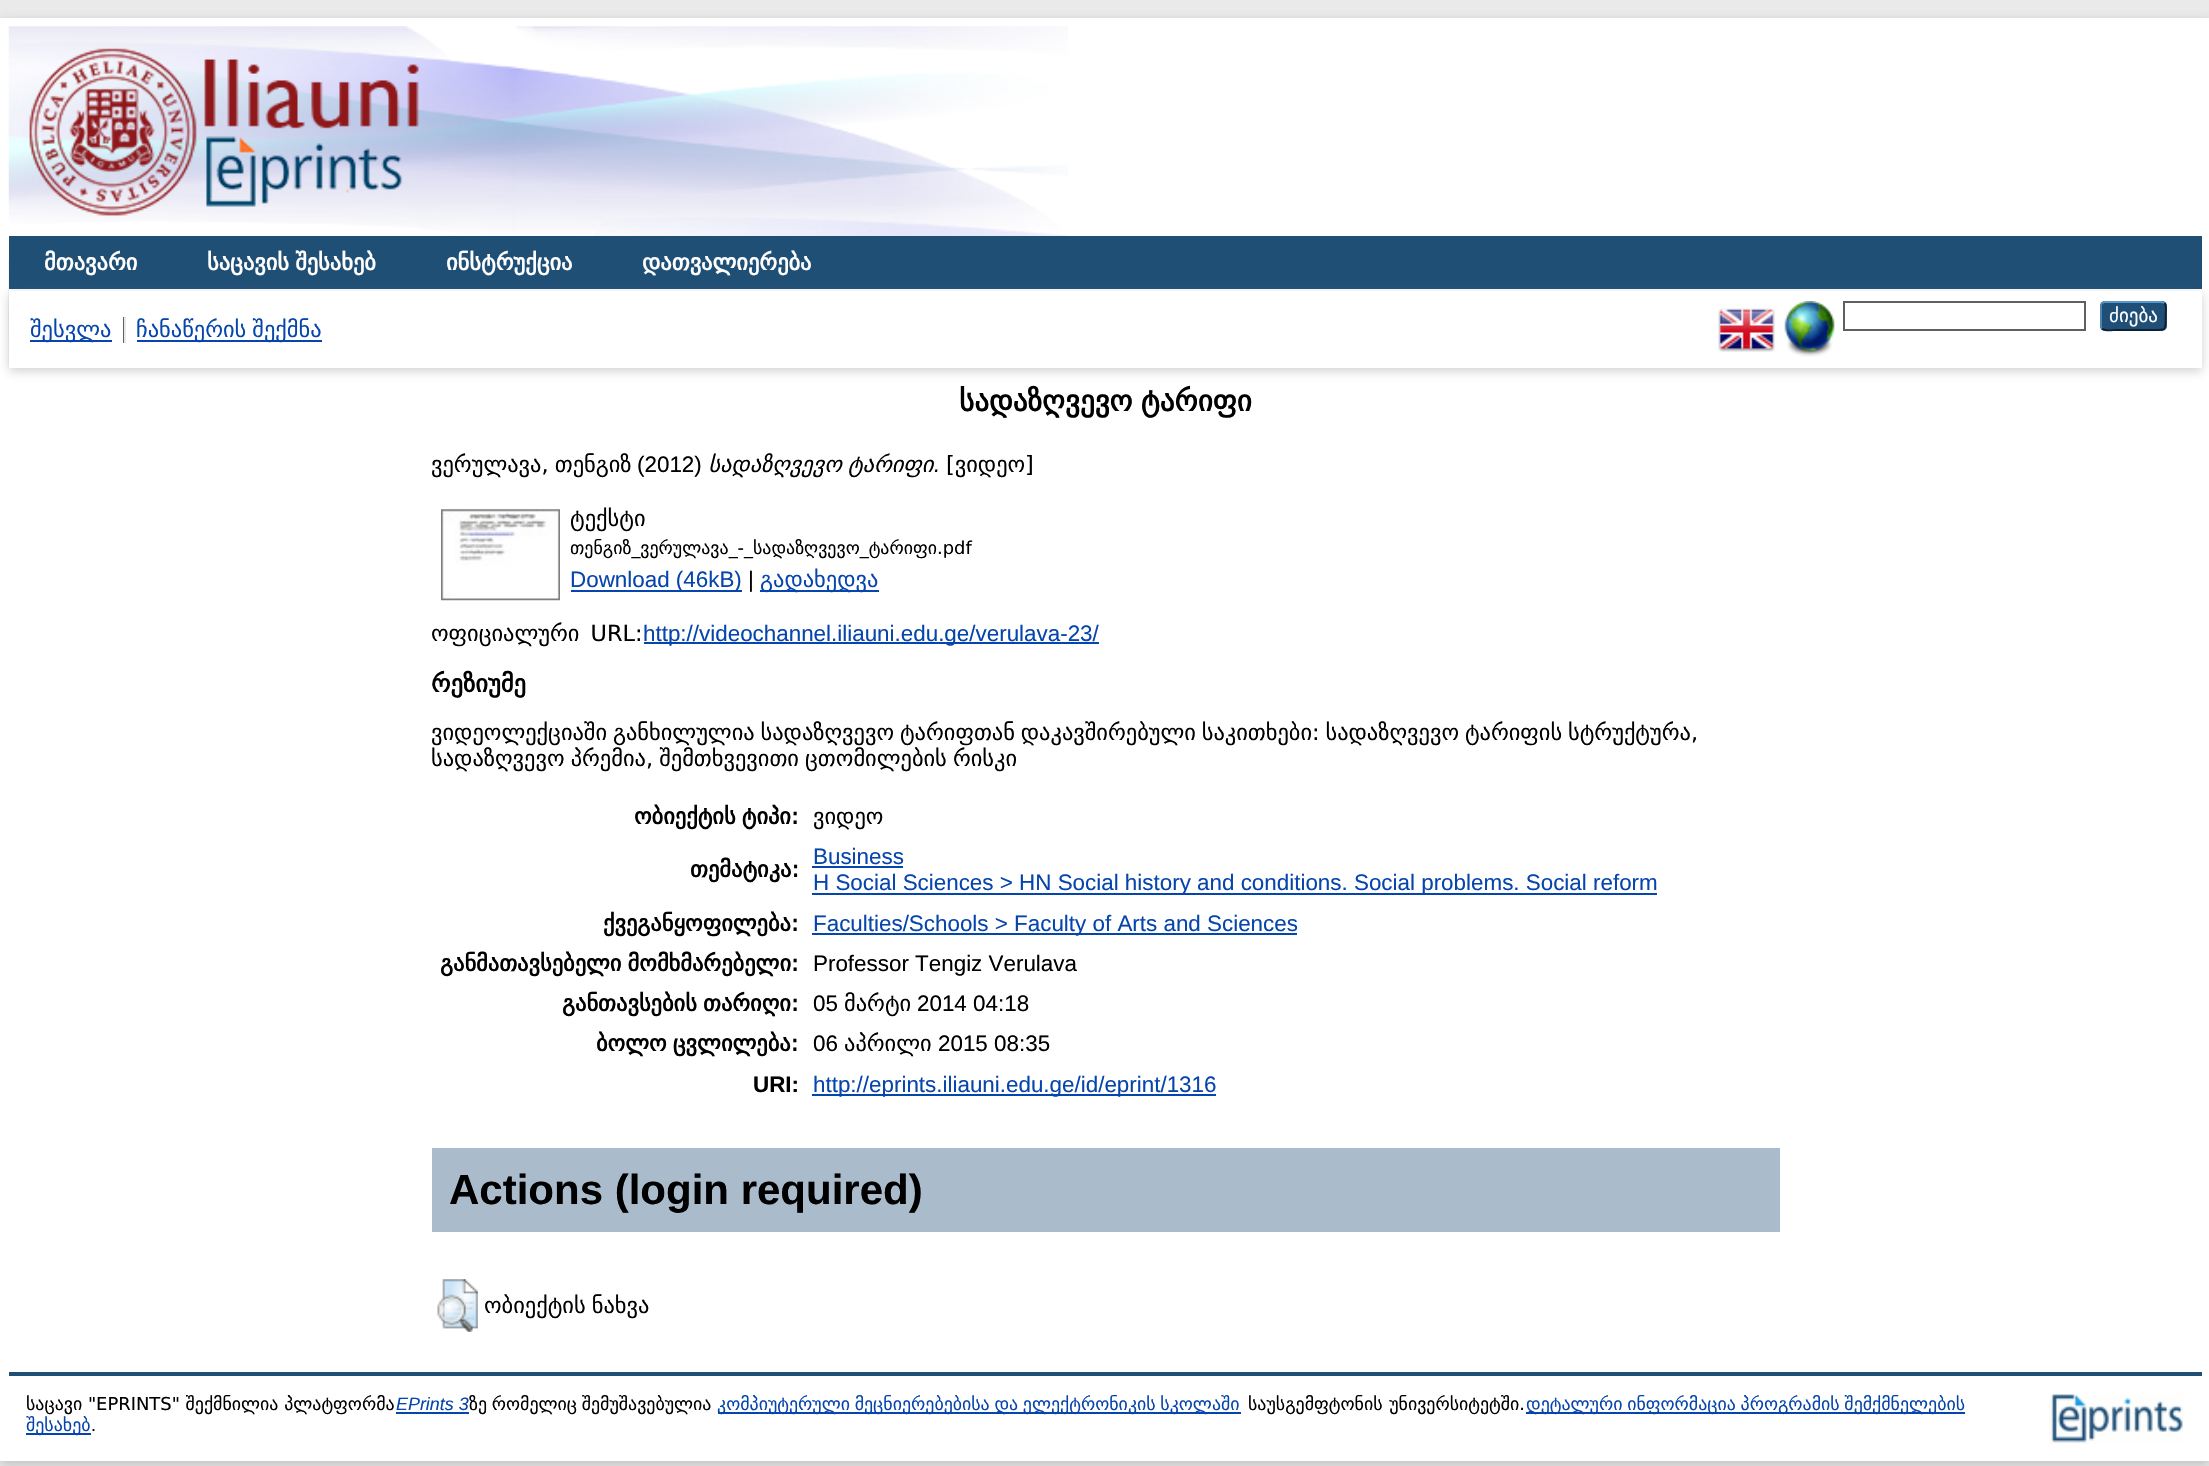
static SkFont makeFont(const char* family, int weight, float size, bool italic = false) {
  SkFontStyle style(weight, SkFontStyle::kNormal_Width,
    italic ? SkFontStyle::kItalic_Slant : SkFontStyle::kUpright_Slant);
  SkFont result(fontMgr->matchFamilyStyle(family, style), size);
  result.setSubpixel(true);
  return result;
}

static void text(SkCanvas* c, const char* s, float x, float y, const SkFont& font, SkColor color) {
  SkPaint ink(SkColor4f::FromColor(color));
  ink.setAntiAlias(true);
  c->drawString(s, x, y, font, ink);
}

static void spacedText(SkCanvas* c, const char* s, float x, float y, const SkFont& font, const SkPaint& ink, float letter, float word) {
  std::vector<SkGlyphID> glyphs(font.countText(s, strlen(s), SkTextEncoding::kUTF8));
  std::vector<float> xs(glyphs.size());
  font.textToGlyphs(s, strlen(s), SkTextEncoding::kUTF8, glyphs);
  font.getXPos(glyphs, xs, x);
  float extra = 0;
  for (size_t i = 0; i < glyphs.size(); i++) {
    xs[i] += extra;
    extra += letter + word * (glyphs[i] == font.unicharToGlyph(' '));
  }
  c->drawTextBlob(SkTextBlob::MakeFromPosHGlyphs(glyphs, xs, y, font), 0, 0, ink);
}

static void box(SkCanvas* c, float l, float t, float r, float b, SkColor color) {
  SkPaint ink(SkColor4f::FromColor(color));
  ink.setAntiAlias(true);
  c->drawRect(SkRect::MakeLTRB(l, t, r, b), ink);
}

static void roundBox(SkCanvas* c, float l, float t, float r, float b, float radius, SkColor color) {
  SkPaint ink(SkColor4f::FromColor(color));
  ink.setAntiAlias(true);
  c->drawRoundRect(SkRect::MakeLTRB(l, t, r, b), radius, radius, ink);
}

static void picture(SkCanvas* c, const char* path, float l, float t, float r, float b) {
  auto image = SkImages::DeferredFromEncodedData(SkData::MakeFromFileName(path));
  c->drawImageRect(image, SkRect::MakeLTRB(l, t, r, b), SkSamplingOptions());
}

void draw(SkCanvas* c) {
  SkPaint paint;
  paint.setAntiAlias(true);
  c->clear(0xffeaeaea);
  paint.setColor(0x4d646464);
  paint.setMaskFilter(SkMaskFilter::MakeBlur(kNormal_SkBlurStyle, 5));
  c->drawRect(SkRect::MakeLTRB(0, 21, 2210, 1465), paint);
  paint.setMaskFilter(nullptr);
  box(c, 0, 18, 2209, 1461, 0xffffffff);
  picture(c, "img_01.png", 8, 26, 1068, 367);
  picture(c, "img_02.png", 29, 48, 419, 216);
  box(c, 9, 236, 2202, 289, 0xff204f76);
  box(c, 9, 289, 1068, 291, 0xffffffff);
  SkFont face1 = makeFont("DejaVu Sans", 700, 22.4f);
  text(c, "მთავარი", 44, 270, face1, 0xffffffff);
  paint.setColor(0xffffffff);
  spacedText(c, "საცავის შესახებ", 207, 270, face1, paint, 0, -1);
  text(c, "ინსტრუქცია", 446, 270, face1, 0xffffffff);
  text(c, "დათვალიერება", 642, 270, face1, 0xffffffff);
  paint.setColor(0x4d646464);
  paint.setMaskFilter(SkMaskFilter::MakeBlur(kNormal_SkBlurStyle, 5));
  c->drawRect(SkRect::MakeLTRB(9, 294, 2202, 371), paint);
  paint.setMaskFilter(nullptr);
  box(c, 9, 291, 2202, 368, 0xffffffff);
  box(c, 30, 340, 112, 342, 0xff0645ad);
  SkFont face2 = makeFont("DejaVu Sans", 400, 22.4f);
  text(c, "შესვლა", 30, 337, face2, 0xff0645ad);
  box(c, 123, 317, 124, 343, 0xff606060);
  box(c, 137, 340, 322, 342, 0xff0645ad);
  paint.setColor(0xff0645ad);
  spacedText(c, "ჩანაწერის შექმნა", 136, 337, face2, paint, 0, -1);
  box(c, 124, 317, 126, 343, 0xffe8e8e8);
  picture(c, "img_03.png", 1718, 308, 1775, 352);
  picture(c, "img_04.png", 1784, 301, 1835, 357);
  paint.setStyle(SkPaint::kStroke_Style);
  paint.setStrokeWidth(2);
  paint.setColor(0xff606060);
  c->drawRect(SkRect::MakeLTRB(1844, 302, 2085, 330), paint);
  roundBox(c, 2100, 301, 2167, 331, 5, 0xff1f4f76);
  paint.setStrokeWidth(1.8f);
  paint.setColor(0xff5b97c7);
  c->drawPath(SkPathBuilder().moveTo(2102, 303).cubicTo(2103, 302.5f, 2104, 302, 2105, 302).lineTo(2161, 302).cubicTo(2162.5f, 302, 2163.5f, 302.5f, 2164.5f, 303).detach(), paint);
  paint.setColor(0xff0d2131);
  c->drawPath(SkPathBuilder().moveTo(2164.5f, 303).cubicTo(2167, 305.5f, 2165.5f, 313, 2165.5f, 316).cubicTo(2165.5f, 330.5f, 2167, 330, 2152, 330).lineTo(2114.5f, 330).cubicTo(2113, 330, 2105, 331.5f, 2102, 328.5f).detach(), paint);
  paint.setColor(0xff5287b3);
  c->drawPath(SkPathBuilder().moveTo(2102, 328.5f).cubicTo(2101.5f, 328, 2101, 326.5f, 2101, 325.5f).lineTo(2101, 306).cubicTo(2101, 305, 2101.5f, 304, 2102, 303).detach(), paint);
  SkFont face3 = makeFont("DejaVu Sans", 400, 19);
  text(c, "ძიება", 2109, 322, face3, 0xffffffff);
  SkFont face4 = makeFont("DejaVu Sans", 700, 29.1f);
  paint.setStyle(SkPaint::kFill_Style);
  paint.setColor(0xff000000);
  spacedText(c, "სადაზღვევო ტარიფი", 959, 411, face4, paint, 0, -1);
  spacedText(c, "ვერულავა, თენგიზ", 431, 472, face2, paint, 0, -1);
  SkFont face5 = makeFont("Liberation Sans", 400, 22.4f);
  text(c, "(2012)", 637, 472, face5, 0xff000000);
  SkFont face6 = makeFont("DejaVu Sans", 400, 22.4f, true);
  spacedText(c, "სადაზღვევო ტარიფი", 708, 472, face6, paint, 0, -1);
  SkFont face7 = makeFont("Liberation Sans", 400, 22.4f, true);
  text(c, ".", 934, 472, face7, 0xff000000);
  text(c, "[ვიდეო]", 946, 472, face2, 0xff000000);
  picture(c, "img_05.png", 441, 509, 560, 601);
  text(c, "ტექსტი", 570, 526, face2, 0xff000000);
  SkFont face8 = makeFont("DejaVu Sans", 400, 17.9f);
  text(c, "თენგიზ_ვერულავა_-_სადაზღვევო_ტარიფი.pdf", 570, 554, face8, 0xff000000);
  box(c, 571, 590, 742, 592, 0xff0645ad);
  text(c, "Download (46kB)", 570, 587, face5, 0xff0645ad);
  text(c, "|", 748, 587, face5, 0xff000000);
  box(c, 760, 590, 879, 592, 0xff0645ad);
  text(c, "გადახედვა", 760, 587, face2, 0xff0645ad);
  spacedText(c, "ოფიციალური URL:", 431, 641, face2, paint, 0, 4);
  box(c, 644, 642, 1099, 644, 0xff0645ad);
  text(c, "http://videochannel.iliauni.edu.ge/verulava-23/", 643, 641, face5, 0xff0645ad);
  SkFont face9 = makeFont("DejaVu Sans", 700, 24.5f);
  text(c, "რეზიუმე", 431, 692, face9, 0xff000000);
  spacedText(c, "ვიდეოლექციაში განხილულია სადაზღვევო ტარიფთან დაკავშირებული საკითხები: სადაზღვევო ტარიფის სტრუქტურა,", 431, 740, face2, paint, 0, -1.25f);
  spacedText(c, "სადაზღვევო პრემია, შემთხვევითი ცთომილების რისკი", 431, 766, face2, paint, 0, -1);
  spacedText(c, "ობიექტის ტიპი:", 634, 824, face1, paint, 0, -1);
  text(c, "ვიდეო", 813, 824, face2, 0xff000000);
  text(c, "თემატიკა:", 690, 877, face1, 0xff000000);
  text(c, "Business", 813, 864, face5, 0xff0645ad);
  box(c, 812, 866, 903, 868, 0xff0645ad);
  box(c, 812, 893, 1657, 895, 0xff0645ad);
  text(c, "H Social Sciences > HN Social history and conditions. Social problems. Social reform", 813, 890, face5, 0xff0645ad);
  text(c, "ქვეგანყოფილება:", 603, 931, face1, 0xff000000);
  box(c, 812, 933, 1297, 935, 0xff0645ad);
  text(c, "Faculties/Schools > Faculty of Arts and Sciences", 813, 931, face5, 0xff0645ad);
  spacedText(c, "განმათავსებელი მომხმარებელი:", 440, 971, face1, paint, 0, -1);
  text(c, "Professor Tengiz Verulava", 813, 971, face5, 0xff000000);
  spacedText(c, "განთავსების თარიღი:", 562, 1011, face1, paint, 0, -1);
  text(c, "05", 813, 1011, face5, 0xff000000);
  text(c, "მარტი", 844, 1011, face2, 0xff000000);
  text(c, "2014 04:18", 917, 1011, face5, 0xff000000);
  spacedText(c, "ბოლო ცვლილება:", 596, 1051, face1, paint, 0, -1);
  text(c, "06", 813, 1051, face5, 0xff000000);
  text(c, "აპრილი", 844, 1051, face2, 0xff000000);
  text(c, "2015 08:35", 938, 1051, face5, 0xff000000);
  SkFont face10 = makeFont("Liberation Sans", 700, 22.4f);
  text(c, "URI:", 753, 1092, face10, 0xff000000);
  box(c, 812, 1094, 1216, 1096, 0xff0645ad);
  text(c, "http://eprints.iliauni.edu.ge/id/eprint/1316", 813, 1092, face5, 0xff0645ad);
  box(c, 432, 1148, 1780, 1232, 0xffaabccb);
  SkFont face11 = makeFont("Liberation Sans", 700, 42);
  text(c, "Actions (login required)", 449, 1204, face11, 0xff000000);
  picture(c, "img_06.png", 437, 1279, 478, 1332);
  spacedText(c, "ობიექტის ნახვა", 484, 1313, face2, paint, 0, -1);
  box(c, 9, 1372, 2202, 1376, 0xff204f76);
  text(c, "საცავი \"EPRINTS\" შექმნილია პლატფორმა", 26, 1410, face8, 0xff000000);
  SkFont face12 = makeFont("Liberation Sans", 400, 17.9f, true);
  text(c, "EPrints 3", 396, 1410, face12, 0xff0645ad);
  box(c, 396, 1412, 469, 1414, 0xff0645ad);
  spacedText(c, "ზე რომელიც შემუშავებულია", 469, 1410, face8, paint, 0, -1);
  box(c, 718, 1412, 1241, 1414, 0xff0645ad);
  paint.setColor(0xff0645ad);
  spacedText(c, "კომპიუტერული მეცნიერებებისა და ელექტრონიკის სკოლაში", 717, 1410, face8, paint, 0, -1);
  paint.setColor(0xff000000);
  spacedText(c, "საუსგემფტონის უნივერსიტეტში.", 1248, 1410, face8, paint, 0, 1);
  box(c, 1526, 1412, 1965, 1414, 0xff0645ad);
  paint.setColor(0xff0645ad);
  spacedText(c, "დეტალური ინფორმაცია პროგრამის შემქმნელების", 1526, 1410, face8, paint, 0, -1);
  box(c, 26, 1433, 91, 1435, 0xff0645ad);
  text(c, "შესახებ", 26, 1431, face8, 0xff0645ad);
  SkFont face13 = makeFont("Liberation Sans", 400, 17.9f);
  text(c, ".", 91, 1431, face13, 0xff000000);
  picture(c, "img_07.png", 2049, 1394, 2183, 1444);
}
